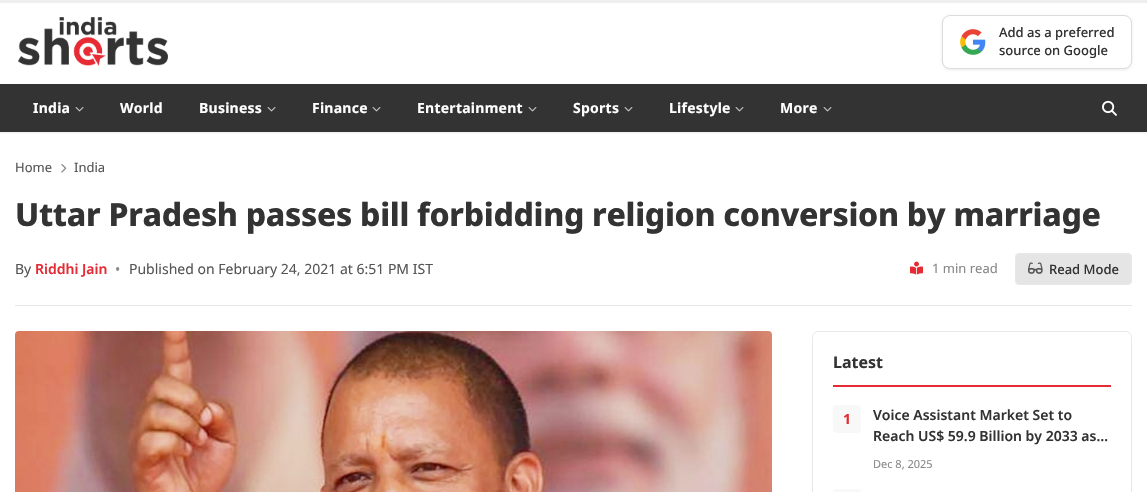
static SkFont makeFont(const char* family, int weight, float size, bool italic = false) {
  SkFontStyle style(weight, SkFontStyle::kNormal_Width,
    italic ? SkFontStyle::kItalic_Slant : SkFontStyle::kUpright_Slant);
  SkFont result(fontMgr->matchFamilyStyle(family, style), size);
  result.setSubpixel(true);
  return result;
}

static void text(SkCanvas* c, const char* s, float x, float y, const SkFont& font, SkColor color) {
  SkPaint ink(SkColor4f::FromColor(color));
  ink.setAntiAlias(true);
  c->drawString(s, x, y, font, ink);
}

static void spacedText(SkCanvas* c, const char* s, float x, float y, const SkFont& font, const SkPaint& ink, float letter, float word) {
  std::vector<SkGlyphID> glyphs(font.countText(s, strlen(s), SkTextEncoding::kUTF8));
  std::vector<float> xs(glyphs.size());
  font.textToGlyphs(s, strlen(s), SkTextEncoding::kUTF8, glyphs);
  font.getXPos(glyphs, xs, x);
  float extra = 0;
  for (size_t i = 0; i < glyphs.size(); i++) {
    xs[i] += extra;
    extra += letter + word * (glyphs[i] == font.unicharToGlyph(' '));
  }
  c->drawTextBlob(SkTextBlob::MakeFromPosHGlyphs(glyphs, xs, y, font), 0, 0, ink);
}

static void box(SkCanvas* c, float l, float t, float r, float b, SkColor color) {
  SkPaint ink(SkColor4f::FromColor(color));
  ink.setAntiAlias(true);
  c->drawRect(SkRect::MakeLTRB(l, t, r, b), ink);
}

static void roundBox(SkCanvas* c, float l, float t, float r, float b, float radius, SkColor color) {
  SkPaint ink(SkColor4f::FromColor(color));
  ink.setAntiAlias(true);
  c->drawRoundRect(SkRect::MakeLTRB(l, t, r, b), radius, radius, ink);
}

static void picture(SkCanvas* c, const char* path, float l, float t, float r, float b) {
  auto image = SkImages::DeferredFromEncodedData(SkData::MakeFromFileName(path));
  c->drawImageRect(image, SkRect::MakeLTRB(l, t, r, b), SkSamplingOptions());
}

void draw(SkCanvas* c) {
  SkPaint paint;
  paint.setAntiAlias(true);
  c->clear(0xffffffff);
  c->save();
  c->clipRect(SkRect::MakeLTRB(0, 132, 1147, 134));
  paint.setColor(0x14000000);
  paint.setMaskFilter(SkMaskFilter::MakeBlur(kNormal_SkBlurStyle, 1.5f));
  c->drawRect(SkRect::MakeLTRB(0, 1, 1147, 133), paint);
  paint.setMaskFilter(nullptr);
  c->restore();
  box(c, 0, 0, 1147, 3, 0xffeeeeee);
  picture(c, "img_01.png", 18, 17, 168, 66);
  paint.setMaskFilter(SkMaskFilter::MakeBlur(kNormal_SkBlurStyle, 1.5f));
  c->drawRoundRect(SkRect::MakeLTRB(942, 16, 1132, 70), 8, 8, paint);
  paint.setMaskFilter(nullptr);
  paint.setColor(0xffffffff);
  c->drawRoundRect(SkRect::MakeLTRB(942.5f, 15.5f, 1131.5f, 68.5f), 7.5f, 7.5f, paint);
  paint.setStyle(SkPaint::kStroke_Style);
  paint.setStrokeWidth(1);
  paint.setColor(0xffdadce0);
  c->drawRoundRect(SkRect::MakeLTRB(942.5f, 15.5f, 1131.5f, 68.5f), 7.5f, 7.5f, paint);
  picture(c, "img_02.png", 960, 29, 986, 55);
  SkFont face1 = makeFont("Noto Sans", 500, 13);
  text(c, "Add as a preferred", 999, 37, face1, 0xff333333);
  text(c, "source on Google", 999, 55, face1, 0xff333333);
  box(c, 0, 84, 1147, 132, 0xff333333);
  SkFont face2 = makeFont("Noto Sans", 700, 14);
  paint.setStyle(SkPaint::kFill_Style);
  paint.setColor(0xffffffff);
  spacedText(c, "India", 33, 113, face2, paint, 0.25f, 0);
  picture(c, "img_03.png", 75, 107, 84, 112);
  spacedText(c, "World", 120, 113, face2, paint, 0.25f, 0);
  spacedText(c, "Business", 199, 113, face2, paint, 0.25f, 0);
  picture(c, "img_03.png", 267, 107, 276, 112);
  spacedText(c, "Finance", 312, 113, face2, paint, 0.25f, 0);
  picture(c, "img_03.png", 372, 107, 381, 112);
  spacedText(c, "Entertainment", 417, 113, face2, paint, 0.25f, 0);
  picture(c, "img_03.png", 528, 107, 537, 112);
  spacedText(c, "Sports", 573, 113, face2, paint, 0.25f, 0);
  picture(c, "img_03.png", 624, 107, 633, 112);
  spacedText(c, "Lifestyle", 669, 113, face2, paint, 0.25f, 0);
  picture(c, "img_03.png", 735, 107, 744, 112);
  spacedText(c, "More", 780, 113, face2, paint, 0.25f, 0);
  picture(c, "img_03.png", 823, 107, 832, 112);
  picture(c, "img_04.png", 1102, 100, 1117, 116);
  box(c, 15, 305, 1132, 306, 0xffe8e8e8);
  SkFont face3 = makeFont("Noto Sans", 400, 13);
  text(c, "Home", 15, 172, face3, 0xff555555);
  picture(c, "img_05.png", 61, 164, 67, 173);
  text(c, "India", 74, 172, face3, 0xff555555);
  SkFont face4 = makeFont("Noto Sans", 800, 32);
  paint.setColor(0xff333333);
  spacedText(c, "Uttar Pradesh passes bill forbidding religion conversion by marriage", 15, 226, face4, paint, -0.3f, 0);
  SkFont face5 = makeFont("Noto Sans", 400, 14);
  text(c, "By", 15, 274, face5, 0xff555555);
  SkFont face6 = makeFont("Noto Sans", 600, 14);
  text(c, "Riddhi Jain", 35, 274, face6, 0xffe62b34);
  text(c, "•", 115, 274, face5, 0xff888888);
  text(c, "Published on February 24, 2021 at 6:51 PM IST", 129, 274, face5, 0xff555555);
  picture(c, "img_06.png", 910, 261, 923, 275);
  text(c, "1 min read", 932, 273, face3, 0xff888888);
  paint.setColor(0xffe5e5e5);
  c->drawRoundRect(SkRect::MakeLTRB(1015.5f, 253.5f, 1131.5f, 284.5f), 3.5f, 3.5f, paint);
  paint.setStyle(SkPaint::kStroke_Style);
  paint.setColor(0xffe8e8e8);
  c->drawRoundRect(SkRect::MakeLTRB(1015.5f, 253.5f, 1131.5f, 284.5f), 3.5f, 3.5f, paint);
  picture(c, "img_07.png", 1028, 262, 1043, 274);
  text(c, "Read Mode", 1049, 274, face1, 0xff333333);
  picture(c, "img_08.png", 15, 331, 772, 492);
  c->drawRoundRect(SkRect::MakeLTRB(812.5f, 331.5f, 1131.5f, 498.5f), 5.5f, 5.5f, paint);
  box(c, 833, 385, 1111, 387, 0xffe62b34);
  SkFont face7 = makeFont("Noto Sans", 700, 16);
  text(c, "Latest", 833, 368, face7, 0xff333333);
  roundBox(c, 833, 405, 861, 433, 4, 0xfff8f8f8);
  text(c, "1", 843, 424, face2, 0xffe62b34);
  text(c, "Voice Assistant Market Set to", 873, 420, face6, 0xff333333);
  text(c, "Reach US$ 59.9 Billion by 2033 as…", 873, 441, face6, 0xff333333);
  SkFont face8 = makeFont("Noto Sans", 400, 11);
  text(c, "Dec 8, 2025", 873, 468, face8, 0xff888888);
  roundBox(c, 833, 489, 861, 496, 4, 0xfff8f8f8);
}
